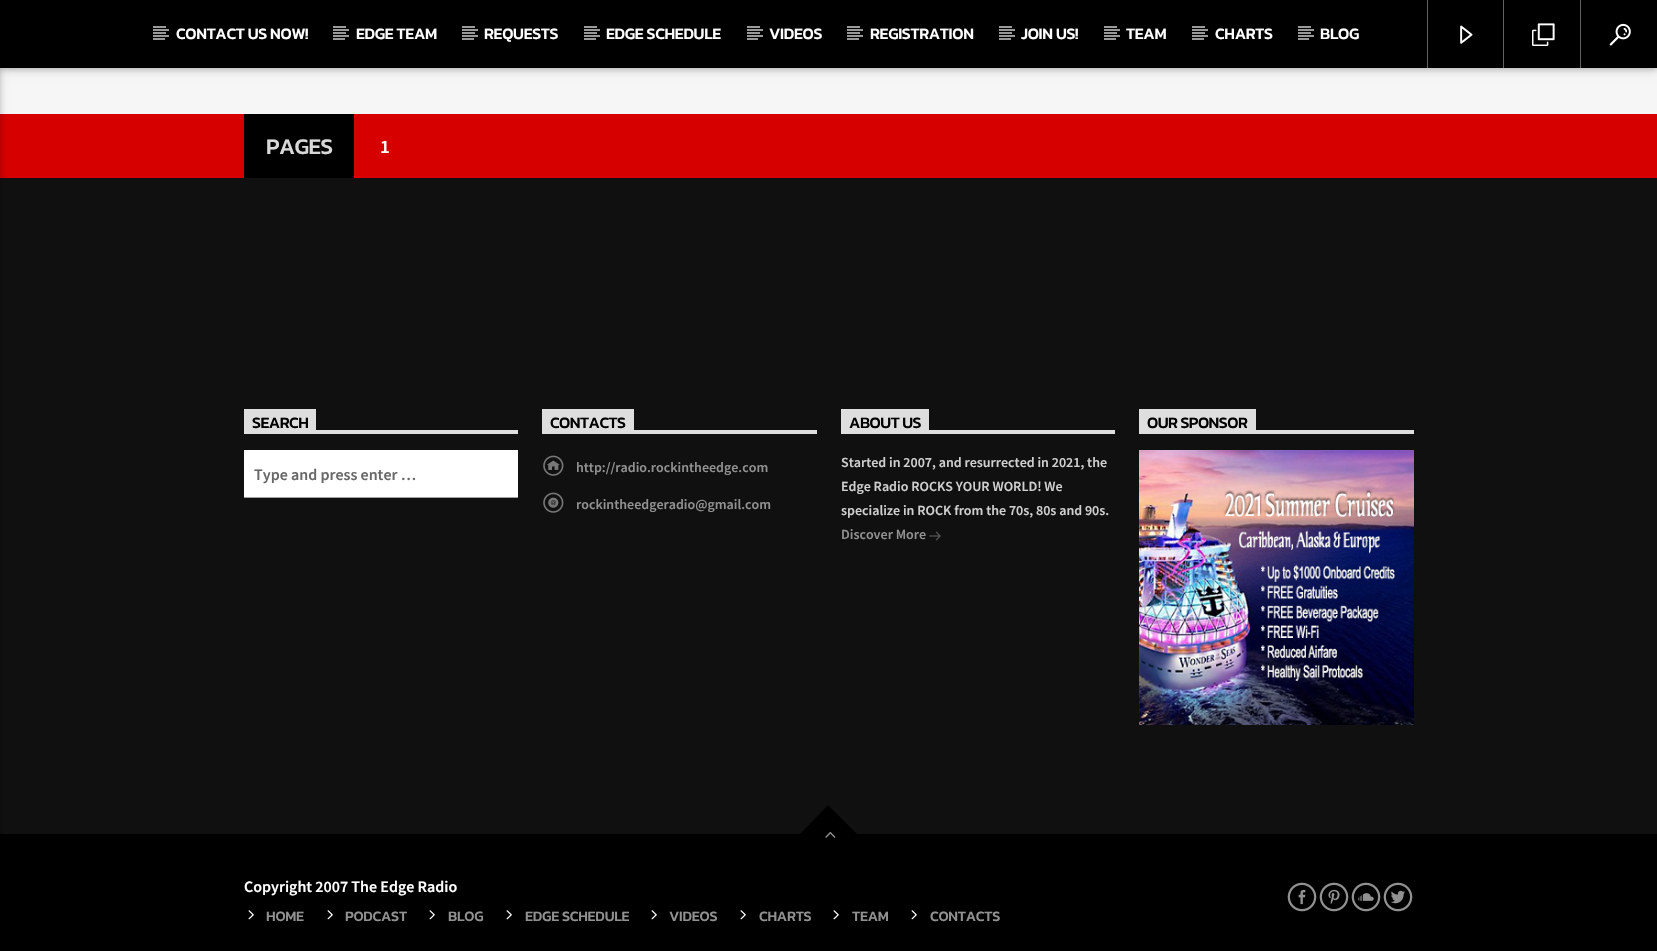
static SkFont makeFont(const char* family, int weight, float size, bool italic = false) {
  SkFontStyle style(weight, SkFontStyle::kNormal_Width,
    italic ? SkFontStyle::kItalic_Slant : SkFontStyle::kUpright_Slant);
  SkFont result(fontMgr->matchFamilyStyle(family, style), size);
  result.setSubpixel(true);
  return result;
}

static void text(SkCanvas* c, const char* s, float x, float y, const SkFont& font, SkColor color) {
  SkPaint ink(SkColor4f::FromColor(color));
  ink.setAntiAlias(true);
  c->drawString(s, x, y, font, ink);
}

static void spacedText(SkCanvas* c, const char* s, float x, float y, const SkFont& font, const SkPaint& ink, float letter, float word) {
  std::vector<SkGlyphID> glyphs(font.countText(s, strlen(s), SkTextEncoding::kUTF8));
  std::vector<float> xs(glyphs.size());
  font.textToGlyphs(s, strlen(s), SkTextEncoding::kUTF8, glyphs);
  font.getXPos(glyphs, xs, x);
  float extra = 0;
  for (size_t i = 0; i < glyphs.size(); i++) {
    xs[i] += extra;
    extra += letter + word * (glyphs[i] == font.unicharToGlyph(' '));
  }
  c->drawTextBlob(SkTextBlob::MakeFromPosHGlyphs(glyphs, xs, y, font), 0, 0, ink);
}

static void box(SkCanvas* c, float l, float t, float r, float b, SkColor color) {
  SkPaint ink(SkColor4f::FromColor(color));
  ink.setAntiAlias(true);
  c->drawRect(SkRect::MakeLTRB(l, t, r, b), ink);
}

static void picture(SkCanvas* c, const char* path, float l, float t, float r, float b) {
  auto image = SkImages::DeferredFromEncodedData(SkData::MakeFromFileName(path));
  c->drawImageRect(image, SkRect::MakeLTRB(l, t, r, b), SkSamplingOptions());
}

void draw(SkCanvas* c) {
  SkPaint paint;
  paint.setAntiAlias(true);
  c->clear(0xfff6f6f6);
  paint.setColor(0x1f000000);
  paint.setMaskFilter(SkMaskFilter::MakeBlur(kNormal_SkBlurStyle, 5));
  c->drawRect(SkRect::MakeLTRB(0, 2, 1657, 70), paint);
  paint.setMaskFilter(nullptr);
  paint.setColor(0x29000000);
  paint.setMaskFilter(SkMaskFilter::MakeBlur(kNormal_SkBlurStyle, 2.5f));
  c->drawRect(SkRect::MakeLTRB(0, 2, 1657, 70), paint);
  paint.setMaskFilter(nullptr);
  box(c, 0, 0, 1657, 68, 0xff000000);
  box(c, 0, 114, 1657, 178, 0xffd70000);
  box(c, 0, 178, 1657, 834, 0xff101010);
  box(c, 0, 834, 1657, 951, 0xff000000);
  paint.setColor(0x1f000000);
  paint.setMaskFilter(SkMaskFilter::MakeBlur(kNormal_SkBlurStyle, 5));
  c->drawRect(SkRect::MakeLTRB(-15, 2, 0, 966), paint);
  paint.setMaskFilter(nullptr);
  paint.setColor(0x29000000);
  paint.setMaskFilter(SkMaskFilter::MakeBlur(kNormal_SkBlurStyle, 2.5f));
  c->drawRect(SkRect::MakeLTRB(-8, 2, 0, 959), paint);
  paint.setMaskFilter(nullptr);
  box(c, 153, 38, 165, 40, 0xff999999);
  box(c, 153, 26, 166, 28, 0xff999999);
  box(c, 153, 32, 166, 34, 0xff999999);
  SkFont face1 = makeFont("Kanit", 500, 16);
  paint.setColor(0xffffffff);
  spacedText(c, "CONTACT US NOW!", 176, 39, face1, paint, -0.3f, 0);
  box(c, 153, 29, 169, 31, 0xff999999);
  box(c, 153, 35, 169, 37, 0xff999999);
  box(c, 333, 38, 345, 40, 0xff999999);
  box(c, 333, 26, 346, 28, 0xff999999);
  box(c, 333, 32, 346, 34, 0xff999999);
  spacedText(c, "EDGE TEAM", 356, 39, face1, paint, -0.3f, 0);
  box(c, 333, 29, 349, 31, 0xff999999);
  box(c, 333, 35, 349, 37, 0xff999999);
  box(c, 462, 38, 474, 40, 0xff999999);
  box(c, 462, 26, 475, 28, 0xff999999);
  box(c, 462, 32, 475, 34, 0xff999999);
  spacedText(c, "REQUESTS", 484, 39, face1, paint, -0.3f, 0);
  box(c, 462, 29, 478, 31, 0xff999999);
  box(c, 462, 35, 478, 37, 0xff999999);
  box(c, 584, 38, 596, 40, 0xff999999);
  box(c, 584, 26, 597, 28, 0xff999999);
  box(c, 584, 32, 597, 34, 0xff999999);
  spacedText(c, "EDGE SCHEDULE", 606, 39, face1, paint, -0.3f, 0);
  box(c, 584, 29, 600, 31, 0xff999999);
  box(c, 584, 35, 600, 37, 0xff999999);
  box(c, 747, 38, 758, 40, 0xff999999);
  box(c, 747, 26, 760, 28, 0xff999999);
  box(c, 747, 32, 760, 34, 0xff999999);
  spacedText(c, "VIDEOS", 769, 39, face1, paint, -0.3f, 0);
  box(c, 747, 29, 763, 31, 0xff999999);
  box(c, 747, 35, 763, 37, 0xff999999);
  box(c, 847, 38, 859, 40, 0xff999999);
  box(c, 847, 26, 860, 28, 0xff999999);
  box(c, 847, 32, 860, 34, 0xff999999);
  spacedText(c, "REGISTRATION", 870, 39, face1, paint, -0.3f, 0);
  box(c, 847, 29, 863, 31, 0xff999999);
  box(c, 847, 35, 863, 37, 0xff999999);
  box(c, 999, 38, 1011, 40, 0xff999999);
  box(c, 999, 26, 1012, 28, 0xff999999);
  box(c, 999, 32, 1012, 34, 0xff999999);
  spacedText(c, "JOIN US!", 1021, 39, face1, paint, -0.3f, 0);
  box(c, 999, 29, 1015, 31, 0xff999999);
  box(c, 999, 35, 1015, 37, 0xff999999);
  box(c, 1104, 38, 1116, 40, 0xff999999);
  box(c, 1104, 26, 1117, 28, 0xff999999);
  box(c, 1104, 32, 1117, 34, 0xff999999);
  spacedText(c, "TEAM", 1126, 39, face1, paint, -0.3f, 0);
  box(c, 1104, 29, 1120, 31, 0xff999999);
  box(c, 1104, 35, 1120, 37, 0xff999999);
  box(c, 1192, 38, 1204, 40, 0xff999999);
  box(c, 1192, 26, 1205, 28, 0xff999999);
  box(c, 1192, 32, 1205, 34, 0xff999999);
  spacedText(c, "CHARTS", 1215, 39, face1, paint, -0.3f, 0);
  box(c, 1192, 29, 1208, 31, 0xff999999);
  box(c, 1192, 35, 1208, 37, 0xff999999);
  box(c, 1298, 38, 1309, 40, 0xff999999);
  box(c, 1298, 26, 1311, 28, 0xff999999);
  box(c, 1298, 32, 1311, 34, 0xff999999);
  spacedText(c, "BLOG", 1320, 39, face1, paint, -0.3f, 0);
  box(c, 1298, 29, 1314, 31, 0xff999999);
  box(c, 1298, 35, 1314, 37, 0xff999999);
  box(c, 1427, 0, 1428, 68, 0xff616161);
  picture(c, "img_01.png", 1460, 25, 1473, 44);
  box(c, 1503, 0, 1504, 68, 0xff616161);
  picture(c, "img_02.png", 1532, 23, 1555, 46);
  box(c, 1580, 0, 1581, 68, 0xff616161);
  picture(c, "img_03.png", 1609, 23, 1631, 46);
  box(c, 244, 114, 354, 178, 0xff000000);
  SkFont face2 = makeFont("Kanit", 500, 22.5f);
  paint.setColor(0xffd8d8d8);
  spacedText(c, "PAGES", 266, 154, face2, paint, -0.5f, 0);
  SkFont face3 = makeFont("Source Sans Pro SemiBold", 600, 19);
  text(c, "1", 380, 153, face3, 0xffffffff);
  box(c, 316, 430, 518, 434, 0xffdedede);
  box(c, 244, 409, 316, 434, 0xffdedede);
  paint.setColor(0xff000000);
  spacedText(c, "SEARCH", 252, 428, face1, paint, -0.5f, 0);
  box(c, 244, 450, 518, 497, 0xffffffff);
  box(c, 244, 497, 518, 498, 0xff9e9e9e);
  SkFont face4 = makeFont("Source Sans Pro SemiBold", 600, 16);
  text(c, "Type and press enter …", 254, 480, face4, 0xff686868);
  box(c, 634, 430, 817, 434, 0xffdedede);
  box(c, 542, 409, 634, 434, 0xffdedede);
  spacedText(c, "CONTACTS", 550, 428, face1, paint, -0.5f, 0);
  picture(c, "img_04.png", 543, 455, 564, 476);
  SkFont face5 = makeFont("Source Sans Pro SemiBold", 600, 14);
  text(c, "http://radio.rockintheedge.com", 576, 472, face5, 0xff919191);
  picture(c, "img_05.png", 543, 492, 564, 513);
  text(c, "rockintheedgeradio@gmail.com", 576, 509, face5, 0xff919191);
  box(c, 929, 430, 1115, 434, 0xffdedede);
  box(c, 841, 409, 929, 434, 0xffdedede);
  spacedText(c, "ABOUT US", 849, 428, face1, paint, -0.5f, 0);
  text(c, "Started in 2007, and resurrected in 2021, the", 841, 467, face5, 0xffcfcfcf);
  text(c, "Edge Radio ROCKS YOUR WORLD! We", 841, 491, face5, 0xffcfcfcf);
  text(c, "specialize in ROCK from the 70s, 80s and 90s.", 841, 515, face5, 0xffcfcfcf);
  text(c, "Discover More", 841, 539, face5, 0xff919191);
  picture(c, "img_06.png", 929, 531, 941, 541);
  box(c, 1256, 430, 1414, 434, 0xffdedede);
  box(c, 1139, 409, 1256, 434, 0xffdedede);
  spacedText(c, "OUR SPONSOR", 1147, 428, face1, paint, -0.5f, 0);
  picture(c, "img_07.png", 1139, 450, 1414, 725);
  c->drawPath(SkPathBuilder().moveTo(800, 834).lineTo(828, 805).lineTo(857, 834).lineTo(828, 862).close().detach(), paint);
  picture(c, "img_08.png", 825, 832, 836, 838);
  text(c, "Copyright 2007 The Edge Radio", 244, 892, face4, 0xffffffff);
  picture(c, "img_09.png", 248, 910, 254, 920);
  SkFont face6 = makeFont("Kanit", 500, 14.5f);
  paint.setColor(0xff919191);
  spacedText(c, "HOME", 266, 921, face6, paint, -0.25f, 0);
  picture(c, "img_09.png", 327, 910, 333, 920);
  spacedText(c, "PODCAST", 345, 921, face6, paint, -0.25f, 0);
  picture(c, "img_09.png", 429, 910, 435, 920);
  spacedText(c, "BLOG", 448, 921, face6, paint, -0.25f, 0);
  picture(c, "img_09.png", 506, 910, 512, 920);
  spacedText(c, "EDGE SCHEDULE", 525, 921, face6, paint, -0.25f, 0);
  picture(c, "img_09.png", 651, 910, 657, 920);
  spacedText(c, "VIDEOS", 669, 921, face6, paint, -0.25f, 0);
  picture(c, "img_09.png", 740, 910, 746, 920);
  spacedText(c, "CHARTS", 759, 921, face6, paint, -0.25f, 0);
  picture(c, "img_09.png", 833, 910, 839, 920);
  spacedText(c, "TEAM", 852, 921, face6, paint, -0.25f, 0);
  picture(c, "img_09.png", 911, 910, 917, 920);
  spacedText(c, "CONTACTS", 930, 921, face6, paint, -0.25f, 0);
  picture(c, "img_10.png", 1287, 882, 1317, 912);
  picture(c, "img_11.png", 1319, 882, 1349, 912);
  picture(c, "img_12.png", 1351, 882, 1381, 912);
  picture(c, "img_13.png", 1383, 882, 1413, 912);
}
